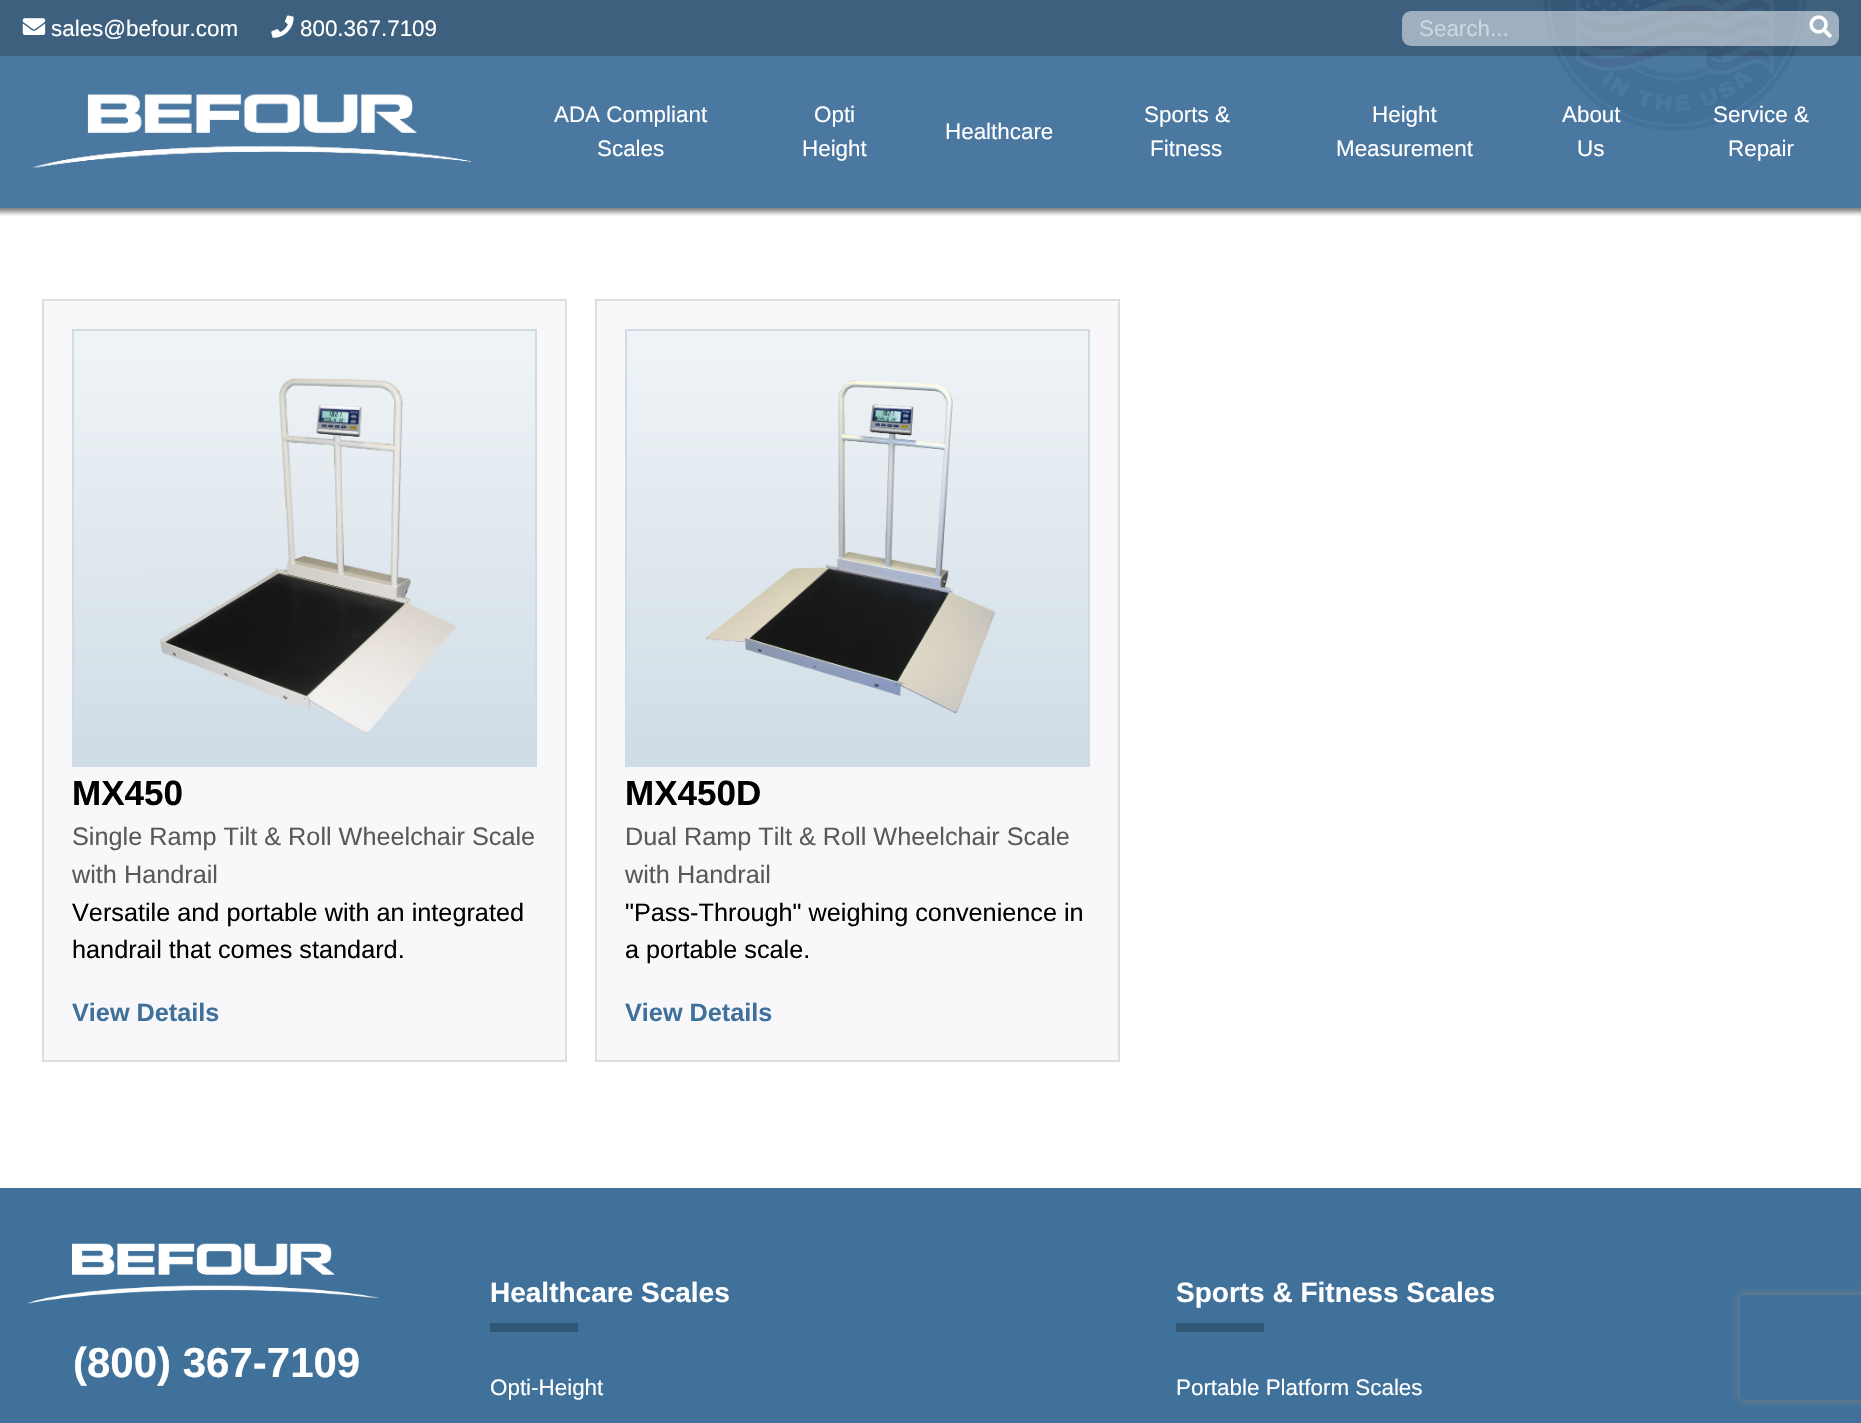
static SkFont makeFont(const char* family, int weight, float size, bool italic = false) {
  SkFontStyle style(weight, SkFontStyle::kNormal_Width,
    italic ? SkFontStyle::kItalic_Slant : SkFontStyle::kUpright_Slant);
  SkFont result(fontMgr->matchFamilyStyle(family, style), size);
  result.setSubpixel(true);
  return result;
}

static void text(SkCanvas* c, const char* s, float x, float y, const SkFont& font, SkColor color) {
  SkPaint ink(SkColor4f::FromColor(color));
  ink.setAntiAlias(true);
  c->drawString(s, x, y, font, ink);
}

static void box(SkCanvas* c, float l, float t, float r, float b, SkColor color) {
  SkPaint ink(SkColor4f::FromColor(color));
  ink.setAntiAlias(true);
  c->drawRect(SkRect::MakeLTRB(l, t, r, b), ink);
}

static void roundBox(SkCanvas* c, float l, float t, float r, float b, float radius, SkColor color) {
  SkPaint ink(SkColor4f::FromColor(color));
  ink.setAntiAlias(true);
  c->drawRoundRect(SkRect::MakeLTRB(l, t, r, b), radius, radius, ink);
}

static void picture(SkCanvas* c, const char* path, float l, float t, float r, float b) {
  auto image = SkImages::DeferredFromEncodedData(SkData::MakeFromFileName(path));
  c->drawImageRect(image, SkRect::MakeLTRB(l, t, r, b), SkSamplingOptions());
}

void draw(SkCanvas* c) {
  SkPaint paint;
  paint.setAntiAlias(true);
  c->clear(0xffffffff);
  picture(c, "img_05.png", 1543, 0, 1806, 131);
  box(c, 0, 0, 1861, 56, 0xf2315777);
  picture(c, "img_01.png", 22, 18, 46, 35);
  picture(c, "img_02.png", 271, 15, 294, 38);
  roundBox(c, 1402, 11, 1839, 46, 9, 0x80ffffff);
  picture(c, "img_03.png", 1809, 15, 1832, 38);
  box(c, 0, 56, 1861, 208, 0xf240719b);
  c->save();
  c->clipRect(SkRect::MakeLTRB(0, 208, 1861, 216));
  paint.setColor(0x80000000);
  paint.setMaskFilter(SkMaskFilter::MakeBlur(kNormal_SkBlurStyle, 2.5f));
  c->drawRect(SkRect::MakeLTRB(-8, 25, 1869, 212), paint);
  paint.setMaskFilter(nullptr);
  c->restore();
  SkFont face1 = makeFont("Liberation Sans", 400, 22.4f);
  text(c, "sales@befour.com", 51, 36, face1, 0xffffffff);
  text(c, "800.367.7109", 300, 36, face1, 0xffffffff);
  text(c, "Search...", 1419, 36, face1, 0xffced7df);
  picture(c, "img_04.png", 33, 94, 472, 169);
  text(c, "ADA Compliant", 554, 122, face1, 0xffffffff);
  text(c, "Scales", 597, 156, face1, 0xffffffff);
  text(c, "Opti", 814, 122, face1, 0xffffffff);
  text(c, "Height", 802, 156, face1, 0xffffffff);
  text(c, "Healthcare", 945, 139, face1, 0xffffffff);
  text(c, "Sports &", 1144, 122, face1, 0xffffffff);
  text(c, "Fitness", 1150, 156, face1, 0xffffffff);
  text(c, "Height", 1372, 122, face1, 0xffffffff);
  text(c, "Measurement", 1336, 156, face1, 0xffffffff);
  text(c, "About", 1562, 122, face1, 0xffffffff);
  text(c, "Us", 1577, 156, face1, 0xffffffff);
  text(c, "Service &", 1713, 122, face1, 0xffffffff);
  text(c, "Repair", 1728, 156, face1, 0xffffffff);
  paint.setColor(0xfff8f8fa);
  c->drawRect(SkRect::MakeLTRB(43, 300, 566, 1061), paint);
  paint.setStyle(SkPaint::kStroke_Style);
  paint.setStrokeWidth(2);
  paint.setColor(0xffdedede);
  c->drawRect(SkRect::MakeLTRB(43, 300, 566, 1061), paint);
  paint.setStyle(SkPaint::kFill_Style);
  {
    const SkColor colors[] = {0xfff0f4f7, 0xffcfdce5};
    const float stops[] = {0, 1};
    const SkPoint ends[] = {{304, 331}, {305, 765}};
    paint.setShader(SkGradientShader::MakeLinear(ends, colors, stops, 2, SkTileMode::kClamp));
    paint.setAlpha(255);
  }
  c->drawRect(SkRect::MakeLTRB(74, 331, 535, 765), paint);
  paint.setStyle(SkPaint::kStroke_Style);
  paint.setShader(nullptr);
  paint.setColor(0xffcfdce5);
  c->drawRect(SkRect::MakeLTRB(73, 330, 536, 766), paint);
  picture(c, "img_06.png", 159, 378, 457, 734);
  SkFont face2 = makeFont("Liberation Sans", 700, 35);
  text(c, "MX450", 72, 805, face2, 0xff000000);
  SkFont face3 = makeFont("Liberation Sans", 400, 25.25f);
  text(c, "Single Ramp Tilt & Roll Wheelchair Scale", 72, 845, face3, 0xff595959);
  text(c, "with Handrail", 72, 883, face3, 0xff595959);
  text(c, "Versatile and portable with an integrated", 72, 921, face3, 0xff000000);
  text(c, "handrail that comes standard.", 72, 958, face3, 0xff000000);
  SkFont face4 = makeFont("Liberation Sans", 700, 25.25f);
  text(c, "View Details", 72, 1021, face4, 0xff40719b);
  paint.setStyle(SkPaint::kFill_Style);
  paint.setColor(0xfff8f8fa);
  c->drawRect(SkRect::MakeLTRB(596, 300, 1119, 1061), paint);
  paint.setStyle(SkPaint::kStroke_Style);
  paint.setColor(0xffdedede);
  c->drawRect(SkRect::MakeLTRB(596, 300, 1119, 1061), paint);
  paint.setStyle(SkPaint::kFill_Style);
  {
    const SkColor colors[] = {0xfff0f4f7, 0xffcfdce5};
    const float stops[] = {0, 1};
    const SkPoint ends[] = {{858, 331}, {858, 765}};
    paint.setShader(SkGradientShader::MakeLinear(ends, colors, stops, 2, SkTileMode::kClamp));
    paint.setAlpha(255);
  }
  c->drawRect(SkRect::MakeLTRB(627, 331, 1088, 765), paint);
  paint.setStyle(SkPaint::kStroke_Style);
  paint.setShader(nullptr);
  paint.setColor(0xffcfdce5);
  c->drawRect(SkRect::MakeLTRB(626, 330, 1089, 766), paint);
  picture(c, "img_07.png", 705, 380, 996, 714);
  text(c, "MX450D", 625, 805, face2, 0xff000000);
  text(c, "Dual Ramp Tilt & Roll Wheelchair Scale", 625, 845, face3, 0xff595959);
  text(c, "with Handrail", 625, 883, face3, 0xff595959);
  text(c, "\"Pass-Through\" weighing convenience in", 625, 921, face3, 0xff000000);
  text(c, "a portable scale.", 625, 958, face3, 0xff000000);
  text(c, "View Details", 625, 1021, face4, 0xff40719b);
  box(c, 0, 1188, 1861, 1423, 0xff40719b);
  picture(c, "img_08.png", 28, 1243, 378, 1304);
  SkFont face5 = makeFont("Liberation Sans", 700, 42);
  text(c, "(800) 367-7109", 73, 1377, face5, 0xffffffff);
  SkFont face6 = makeFont("Liberation Sans", 700, 28);
  text(c, "Healthcare Scales", 490, 1302, face6, 0xffffffff);
  box(c, 490, 1323, 578, 1332, 0xff315777);
  text(c, "Opti-Height", 490, 1395, face1, 0xffffffff);
  text(c, "Sports & Fitness Scales", 1176, 1302, face6, 0xffffffff);
  box(c, 1176, 1323, 1264, 1332, 0xff315777);
  text(c, "Portable Platform Scales", 1176, 1395, face1, 0xffffffff);
  c->save();
  c->clipPath(SkPathBuilder(SkPathFillType::kEvenOdd).moveTo(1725, 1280).lineTo(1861, 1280).lineTo(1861, 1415).lineTo(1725, 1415).close().moveTo(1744, 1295).lineTo(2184, 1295).cubicTo(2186, 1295, 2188, 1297, 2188, 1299).lineTo(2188, 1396).cubicTo(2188, 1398, 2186, 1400, 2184, 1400).lineTo(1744, 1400).cubicTo(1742, 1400, 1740, 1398, 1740, 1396).lineTo(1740, 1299).cubicTo(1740, 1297, 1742, 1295, 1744, 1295).close().detach(), true);
  paint.setStyle(SkPaint::kFill_Style);
  paint.setColor(0xff808080);
  paint.setMaskFilter(SkMaskFilter::MakeBlur(kNormal_SkBlurStyle, 4.5f));
  c->drawRoundRect(SkRect::MakeLTRB(1740, 1295, 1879, 1400), 4, 4, paint);
  paint.setMaskFilter(nullptr);
  c->restore();
}
